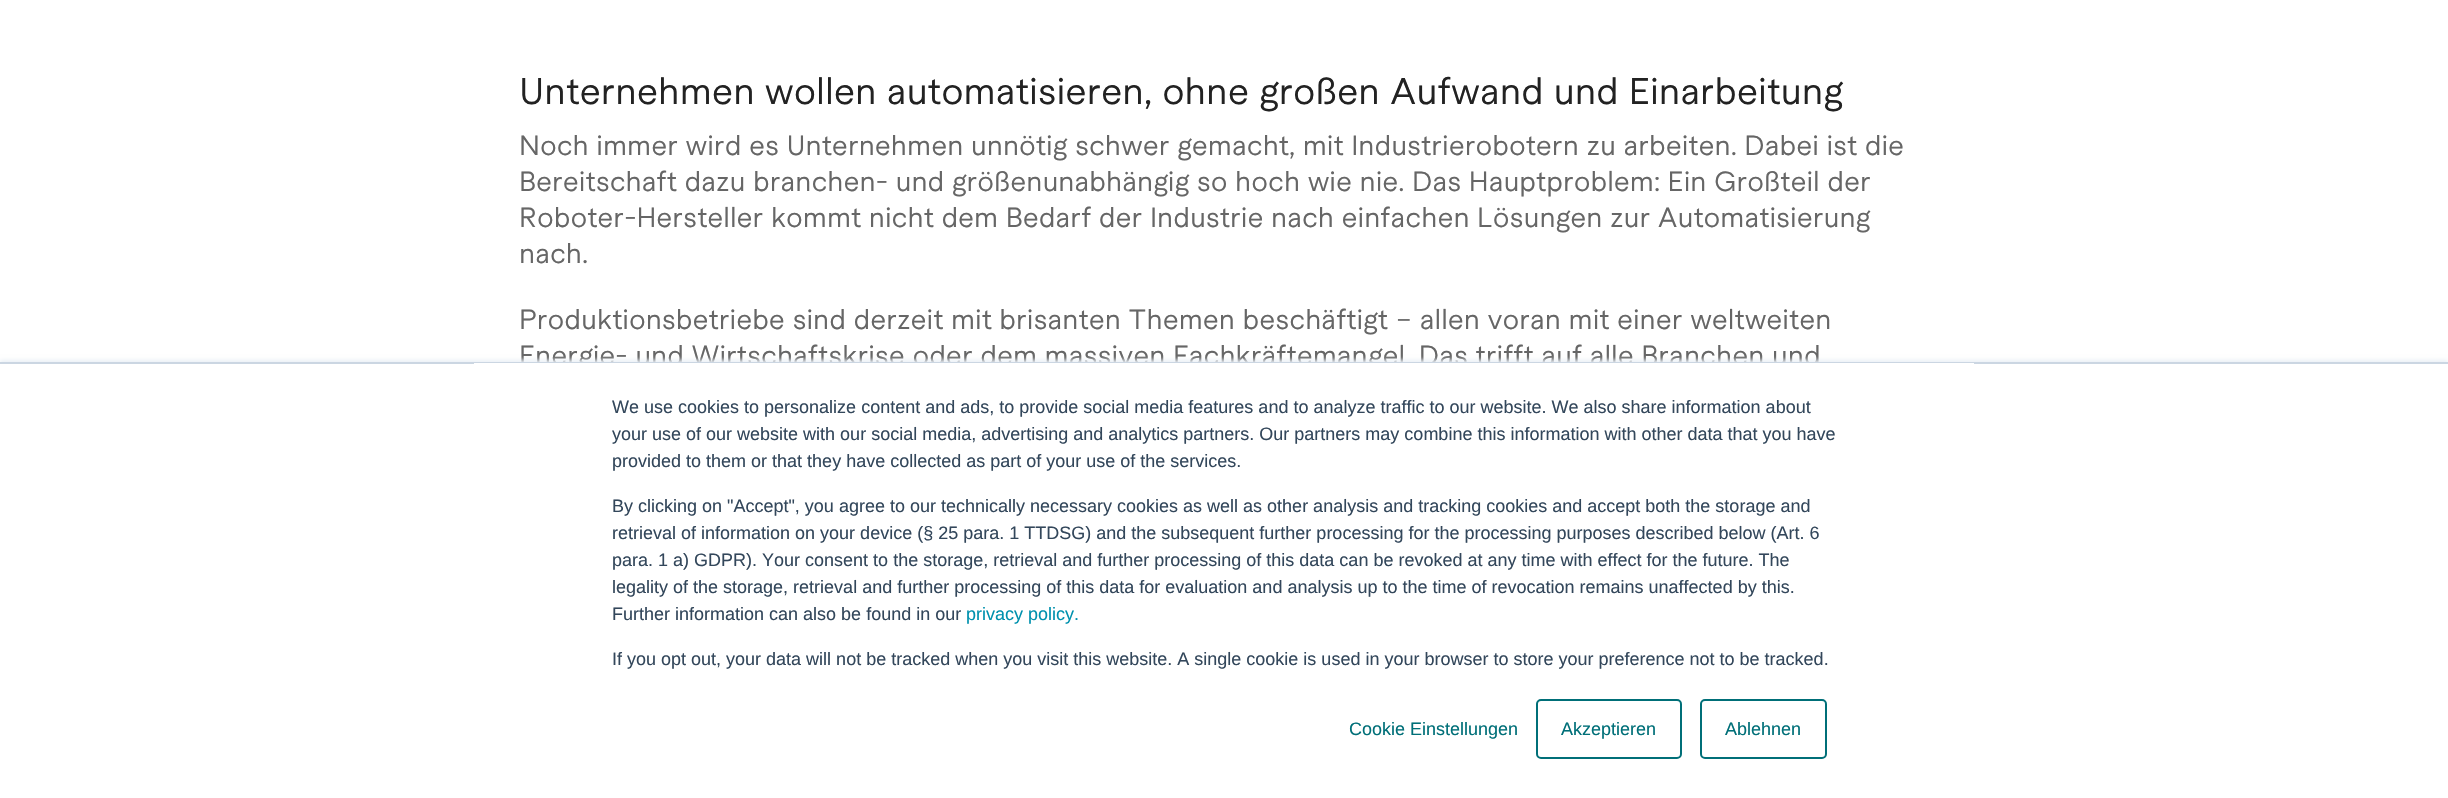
static SkFont makeFont(const char* family, int weight, float size, bool italic = false) {
  SkFontStyle style(weight, SkFontStyle::kNormal_Width,
    italic ? SkFontStyle::kItalic_Slant : SkFontStyle::kUpright_Slant);
  SkFont result(fontMgr->matchFamilyStyle(family, style), size);
  result.setSubpixel(true);
  return result;
}

static void text(SkCanvas* c, const char* s, float x, float y, const SkFont& font, SkColor color) {
  SkPaint ink(SkColor4f::FromColor(color));
  ink.setAntiAlias(true);
  c->drawString(s, x, y, font, ink);
}

static void box(SkCanvas* c, float l, float t, float r, float b, SkColor color) {
  SkPaint ink(SkColor4f::FromColor(color));
  ink.setAntiAlias(true);
  c->drawRect(SkRect::MakeLTRB(l, t, r, b), ink);
}

void draw(SkCanvas* c) {
  SkPaint paint;
  paint.setAntiAlias(true);
  c->clear(0xffffffff);
  SkFont face1 = makeFont("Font", 400, 36);
  text(c, "Unternehmen wollen automatisieren, ohne großen Aufwand und Einarbeitung", 519, 104, face1, 0xff222222);
  SkFont face2 = makeFont("Font", 400, 27);
  text(c, "Noch immer wird es Unternehmen unnötig schwer gemacht, mit Industrierobotern zu arbeiten. Dabei ist die", 519, 155, face2, 0xff666666);
  text(c, "Bereitschaft dazu branchen- und größenunabhängig so hoch wie nie. Das Hauptproblem: Ein Großteil der", 519, 191, face2, 0xff666666);
  text(c, "Roboter-Hersteller kommt nicht dem Bedarf der Industrie nach einfachen Lösungen zur Automatisierung", 519, 227, face2, 0xff666666);
  text(c, "nach.", 519, 263, face2, 0xff666666);
  text(c, "Produktionsbetriebe sind derzeit mit brisanten Themen beschäftigt – allen voran mit einer weltweiten", 519, 329, face2, 0xff666666);
  text(c, "Energie- und Wirtschaftskrise oder dem massiven Fachkräftemangel. Das trifft auf alle Branchen und", 519, 365, face2, 0xff666666);
  paint.setColor(0xffeaf0f6);
  paint.setMaskFilter(SkMaskFilter::MakeBlur(kNormal_SkBlurStyle, 2));
  c->drawRect(SkRect::MakeLTRB(0, 360, 2448, 797), paint);
  paint.setMaskFilter(nullptr);
  box(c, 0, 364, 2448, 798, 0xffffffff);
  box(c, 0, 362, 2448, 364, 0xffcbd6e2);
  box(c, 474, 363, 1974, 364, 0xffffffff);
  SkFont face3 = makeFont("Liberation Sans", 400, 18);
  text(c, "We use cookies to personalize content and ads, to provide social media features and to analyze traffic to our website. We also share information about", 612, 413, face3, 0xff33475b);
  text(c, "your use of our website with our social media, advertising and analytics partners. Our partners may combine this information with other data that you have", 612, 440, face3, 0xff33475b);
  text(c, "provided to them or that they have collected as part of your use of the services.", 612, 467, face3, 0xff33475b);
  text(c, "By clicking on \"Accept\", you agree to our technically necessary cookies as well as other analysis and tracking cookies and accept both the storage and", 612, 512, face3, 0xff33475b);
  text(c, "retrieval of information on your device (§ 25 para. 1 TTDSG) and the subsequent further processing for the processing purposes described below (Art. 6", 612, 539, face3, 0xff33475b);
  text(c, "para. 1 a) GDPR). Your consent to the storage, retrieval and further processing of this data can be revoked at any time with effect for the future. The", 612, 566, face3, 0xff33475b);
  text(c, "legality of the storage, retrieval and further processing of this data for evaluation and analysis up to the time of revocation remains unaffected by this.", 612, 593, face3, 0xff33475b);
  text(c, "Further information can also be found in our", 612, 620, face3, 0xff33475b);
  text(c, "privacy policy.", 966, 620, face3, 0xff0091ae);
  text(c, "If you opt out, your data will not be tracked when you visit this website. A single cookie is used in your browser to store your preference not to be tracked.", 612, 665, face3, 0xff33475b);
  text(c, "Cookie Einstellungen", 1349, 735, face3, 0xff006f78);
  paint.setStyle(SkPaint::kStroke_Style);
  paint.setStrokeWidth(2);
  paint.setColor(0xff006f78);
  c->drawRoundRect(SkRect::MakeLTRB(1537, 700, 1681, 758), 4, 4, paint);
  text(c, "Akzeptieren", 1561, 735, face3, 0xff006f78);
  c->drawRoundRect(SkRect::MakeLTRB(1701, 700, 1826, 758), 4, 4, paint);
  text(c, "Ablehnen", 1725, 735, face3, 0xff006f78);
}
